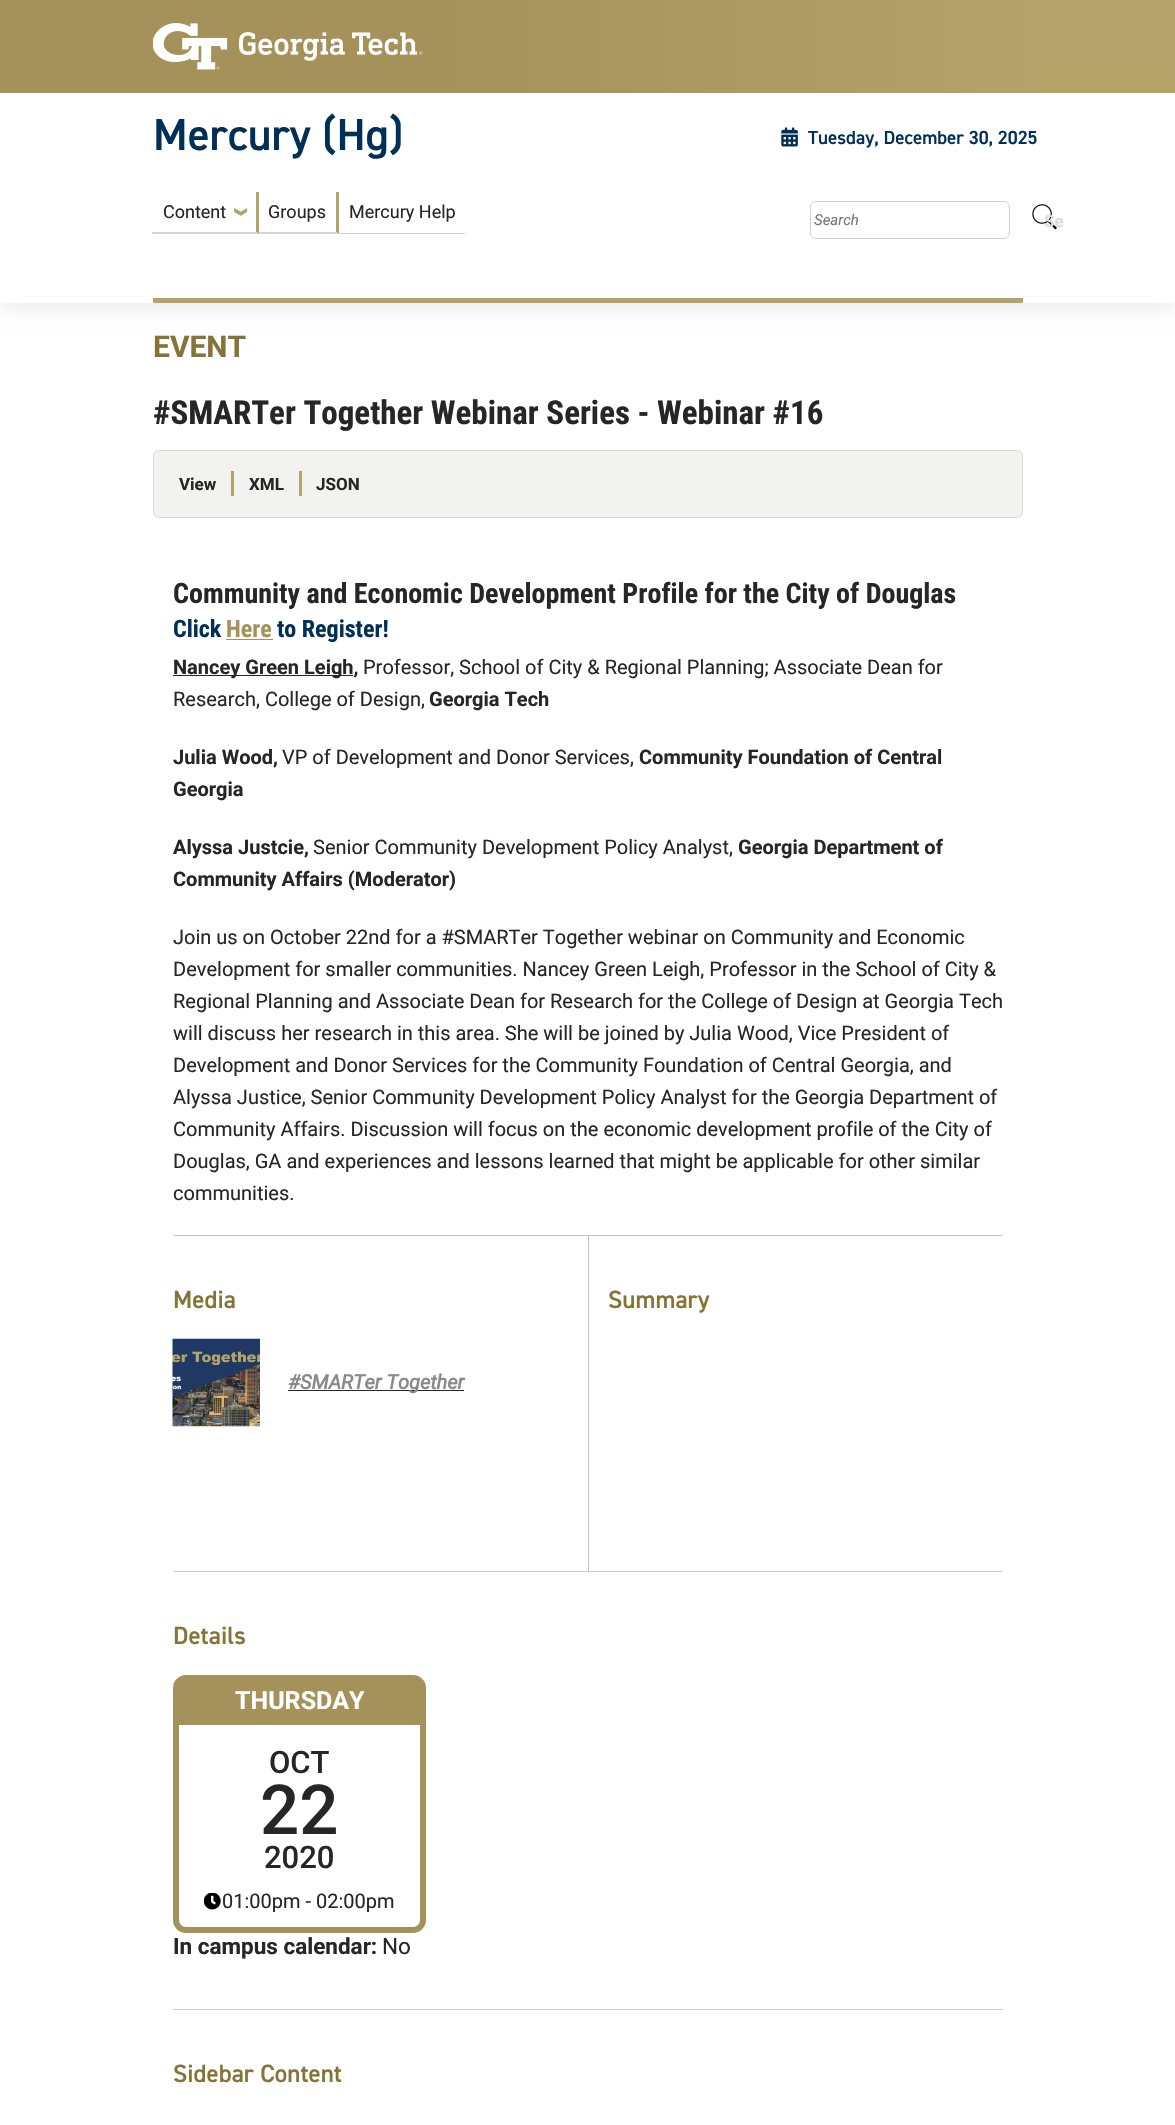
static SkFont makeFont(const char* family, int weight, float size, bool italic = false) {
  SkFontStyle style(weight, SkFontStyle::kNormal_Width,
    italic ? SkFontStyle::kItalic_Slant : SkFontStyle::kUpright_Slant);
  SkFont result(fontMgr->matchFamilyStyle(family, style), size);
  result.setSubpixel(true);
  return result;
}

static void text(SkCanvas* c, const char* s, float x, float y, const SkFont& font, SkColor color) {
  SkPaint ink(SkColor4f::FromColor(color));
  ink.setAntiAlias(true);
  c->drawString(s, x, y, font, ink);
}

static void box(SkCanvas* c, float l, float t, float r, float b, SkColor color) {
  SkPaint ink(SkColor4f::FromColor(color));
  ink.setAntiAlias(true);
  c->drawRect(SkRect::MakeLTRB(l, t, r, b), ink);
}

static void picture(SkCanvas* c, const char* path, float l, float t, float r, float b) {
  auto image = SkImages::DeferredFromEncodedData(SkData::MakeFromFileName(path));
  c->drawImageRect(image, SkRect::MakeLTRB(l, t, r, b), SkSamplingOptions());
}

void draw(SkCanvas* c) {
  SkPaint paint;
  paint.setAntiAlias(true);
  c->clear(0xffffffff);
  c->save();
  c->clipPath(SkPathBuilder(SkPathFillType::kEvenOdd).moveTo(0, 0).lineTo(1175, 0).lineTo(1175, 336).lineTo(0, 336).close().moveTo(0, 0).lineTo(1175, 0).lineTo(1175, 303).lineTo(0, 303).close().detach(), true);
  paint.setColor(0x1a000000);
  paint.setMaskFilter(SkMaskFilter::MakeBlur(kNormal_SkBlurStyle, 10));
  c->drawRect(SkRect::MakeLTRB(0, 3, 1175, 305), paint);
  paint.setMaskFilter(nullptr);
  c->restore();
  box(c, 0, 0, 438, 93, 0xffa4925a);
  box(c, 1038, 0, 1175, 93, 0xffb3a369);
  picture(c, "img_01.png", 153, 23, 423, 70);
  {
    const SkColor colors[] = {0xffa4925a, 0xffb3a369};
    const float stops[] = {0, 1};
    const SkPoint ends[] = {{438, 46}, {1038, 46}};
    paint.setShader(SkGradientShader::MakeLinear(ends, colors, stops, 2, SkTileMode::kClamp));
    paint.setAlpha(255);
  }
  c->drawRect(SkRect::MakeLTRB(438, 0, 1038, 93), paint);
  SkFont face1 = makeFont("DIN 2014", 600, 45);
  text(c, "Mercury (Hg)", 153, 150, face1, 0xff003057);
  picture(c, "img_02.png", 781, 127, 798, 147);
  SkFont face2 = makeFont("DIN 2014", 600, 19);
  text(c, "Tuesday, December 30, 2025", 808, 144, face2, 0xff003057);
  box(c, 153, 298, 1023, 303, 0xffb3a369);
  paint.setShader(nullptr);
  paint.setColor(0xffb3a369);
  c->drawPath(SkPathBuilder().moveTo(259, 192).lineTo(259, 234).lineTo(256, 232).lineTo(256, 192).close().detach(), paint);
  paint.setColor(0xffced4da);
  c->drawPath(SkPathBuilder().moveTo(259, 234).lineTo(152, 234).lineTo(152, 232).lineTo(256, 232).close().detach(), paint);
  SkFont face3 = makeFont("Roboto", 400, 18);
  text(c, "Content", 163, 218, face3, 0xff262626);
  picture(c, "img_03.png", 234, 208, 248, 216);
  paint.setColor(0xffb3a369);
  c->drawPath(SkPathBuilder().moveTo(339, 192).lineTo(339, 234).lineTo(336, 232).lineTo(336, 192).close().detach(), paint);
  paint.setColor(0xffced4da);
  c->drawPath(SkPathBuilder().moveTo(339, 234).lineTo(259, 234).lineTo(259, 232).lineTo(336, 232).close().detach(), paint);
  text(c, "Groups", 268, 218, face3, 0xff262626);
  box(c, 339, 233, 465, 234, 0xffced4da);
  text(c, "Mercury Help", 349, 218, face3, 0xff262626);
  paint.setStyle(SkPaint::kStroke_Style);
  paint.setStrokeWidth(1);
  paint.setColor(0xffd0d0d0);
  c->drawRoundRect(SkRect::MakeLTRB(810.5f, 201.5f, 1009.5f, 238.5f), 5.5f, 5.5f, paint);
  SkFont face4 = makeFont("Roboto", 400, 15, true);
  text(c, "Search", 814, 225, face4, 0xff757575);
  picture(c, "img_04.png", 1032, 204, 1057, 230);
  SkFont face5 = makeFont("Roboto", 700, 17);
  text(c, "Se", 1044, 227, face5, 0xffdcdcdc);
  SkFont face6 = makeFont("Roboto", 700, 30);
  text(c, "EVENT", 153, 357, face6, 0xff857437);
  SkFont face7 = makeFont("Roboto Condensed", 700, 33);
  text(c, "#SMARTer Together Webinar Series - Webinar #16", 153, 424, face7, 0xff262626);
  paint.setStyle(SkPaint::kFill_Style);
  paint.setColor(0xfff2f3f1);
  c->drawRoundRect(SkRect::MakeLTRB(153.5f, 450.5f, 1022.5f, 517.5f), 5.5f, 5.5f, paint);
  paint.setStyle(SkPaint::kStroke_Style);
  paint.setColor(0xffd6dbd4);
  c->drawRoundRect(SkRect::MakeLTRB(153.5f, 450.5f, 1022.5f, 517.5f), 5.5f, 5.5f, paint);
  box(c, 231, 471, 234, 496, 0xffb3a369);
  text(c, "View", 179, 490, face5, 0xff262626);
  box(c, 299, 471, 302, 496, 0xffb3a369);
  text(c, "XML", 249, 490, face5, 0xff262626);
  text(c, "JSON", 316, 490, face5, 0xff262626);
  SkFont face8 = makeFont("Roboto Condensed", 700, 28);
  text(c, "Community and Economic Development Profile for the City of Douglas", 173, 603, face8, 0xff262626);
  SkFont face9 = makeFont("Roboto Condensed", 700, 24);
  text(c, "Click", 173, 637, face9, 0xff003057);
  text(c, "Here", 226, 637, face9, 0xffa4925a);
  box(c, 226, 639, 273, 640, 0xffa4925a);
  text(c, "to Register!", 277, 637, face9, 0xff003057);
  box(c, 173, 675, 353, 676, 0xff262626);
  SkFont face10 = makeFont("Roboto", 700, 20);
  text(c, "Nancey Green Leigh,", 173, 674, face10, 0xff262626);
  SkFont face11 = makeFont("Roboto", 400, 20);
  text(c, "Professor, School of City & Regional Planning; Associate Dean for", 363, 674, face11, 0xff262626);
  text(c, "Research, College of Design,", 173, 706, face11, 0xff262626);
  text(c, "Georgia Tech", 429, 706, face10, 0xff262626);
  text(c, "Julia Wood,", 173, 764, face10, 0xff262626);
  text(c, "VP of Development and Donor Services,", 282, 764, face11, 0xff262626);
  text(c, "Community Foundation of Central", 639, 764, face10, 0xff262626);
  text(c, "Georgia", 173, 796, face10, 0xff262626);
  text(c, "Alyssa Justcie,", 173, 854, face10, 0xff262626);
  text(c, "Senior Community Development Policy Analyst,", 313, 854, face11, 0xff262626);
  text(c, "Georgia Department of", 738, 854, face10, 0xff262626);
  text(c, "Community Affairs (Moderator)", 173, 886, face10, 0xff262626);
  text(c, "Join us on October 22nd for a #SMARTer Together webinar on Community and Economic", 173, 944, face11, 0xff262626);
  text(c, "Development for smaller communities. Nancey Green Leigh, Professor in the School of City &", 173, 976, face11, 0xff262626);
  text(c, "Regional Planning and Associate Dean for Research for the College of Design at Georgia Tech", 173, 1008, face11, 0xff262626);
  text(c, "will discuss her research in this area. She will be joined by Julia Wood, Vice President of", 173, 1040, face11, 0xff262626);
  text(c, "Development and Donor Services for the Community Foundation of Central Georgia, and", 173, 1072, face11, 0xff262626);
  text(c, "Alyssa Justice, Senior Community Development Policy Analyst for the Georgia Department of", 173, 1104, face11, 0xff262626);
  text(c, "Community Affairs. Discussion will focus on the economic development profile of the City of", 173, 1136, face11, 0xff262626);
  text(c, "Douglas, GA and experiences and lessons learned that might be applicable for other similar", 173, 1168, face11, 0xff262626);
  text(c, "communities.", 173, 1200, face11, 0xff262626);
  box(c, 173, 1235, 1003, 1236, 0xffc4c4c4);
  box(c, 173, 1571, 1003, 1572, 0xffcccccc);
  SkFont face12 = makeFont("DIN 2014", 600, 25);
  text(c, "Media", 173, 1308, face12, 0xff857437);
  picture(c, "img_05.png", 172, 1338, 260, 1427);
  box(c, 288, 1390, 464, 1391, 0xff262626);
  SkFont face13 = makeFont("Roboto", 700, 20, true);
  text(c, "#SMARTer Together", 288, 1389, face13, 0xff898989);
  box(c, 588, 1236, 589, 1571, 0xffc4c4c4);
  text(c, "Summary", 608, 1308, face12, 0xff857437);
  box(c, 173, 2009, 1003, 2010, 0xffcccccc);
  text(c, "Details", 173, 1644, face12, 0xff857437);
  paint.setStrokeWidth(6);
  paint.setColor(0xffa4925a);
  c->drawRoundRect(SkRect::MakeLTRB(176, 1678, 423, 1930), 10, 10, paint);
  box(c, 179, 1681, 420, 1725, 0xffa4925a);
  SkFont face14 = makeFont("Roboto", 700, 25);
  text(c, "THURSDAY", 235, 1709, face14, 0xffffffff);
  SkFont face15 = makeFont("Roboto", 500, 31);
  text(c, "OCT", 269, 1773, face15, 0xff262626);
  SkFont face16 = makeFont("Roboto", 500, 69);
  text(c, "22", 260, 1834, face16, 0xff262626);
  text(c, "2020", 264, 1868, face15, 0xff262626);
  picture(c, "img_06.png", 204, 1893, 221, 1910);
  text(c, "01:00pm - 02:00pm", 222, 1908, face11, 0xff262626);
  SkFont face17 = makeFont("Roboto", 700, 22.5f);
  text(c, "In campus calendar:", 173, 1954, face17, 0xff262626);
  SkFont face18 = makeFont("Roboto", 400, 22.5f);
  text(c, "No", 382, 1954, face18, 0xff262626);
  text(c, "Sidebar Content", 173, 2082, face12, 0xff857437);
}
